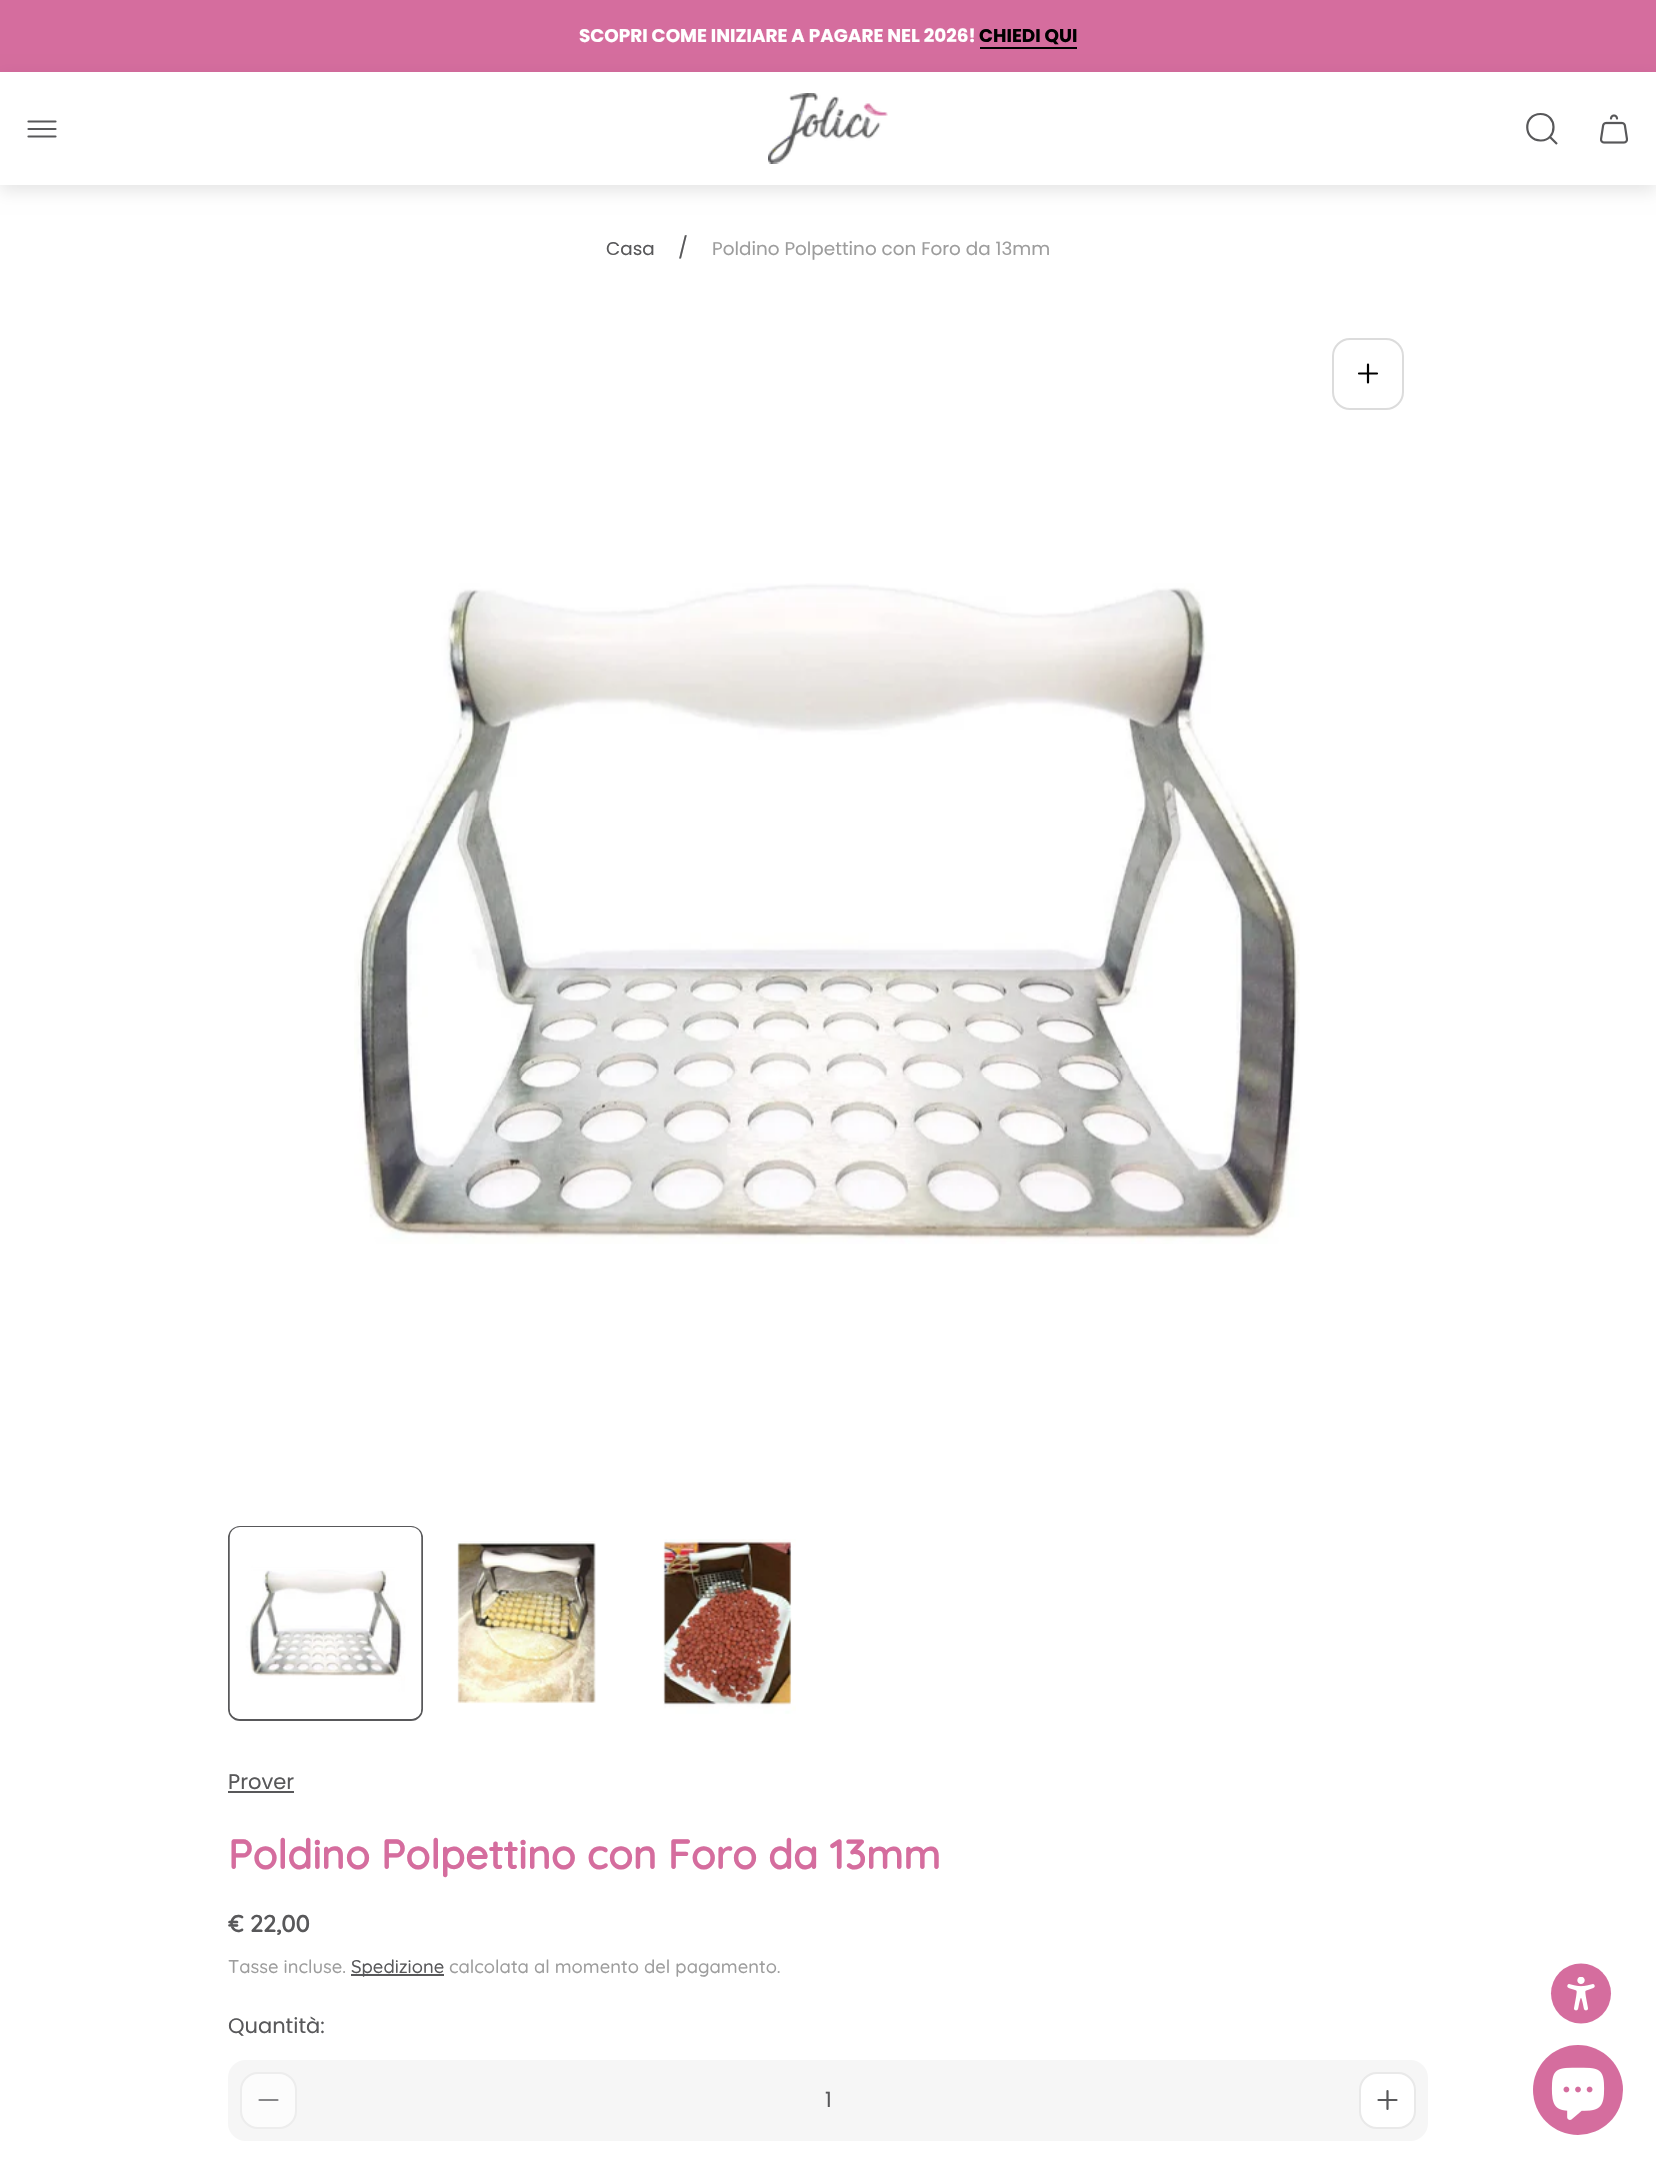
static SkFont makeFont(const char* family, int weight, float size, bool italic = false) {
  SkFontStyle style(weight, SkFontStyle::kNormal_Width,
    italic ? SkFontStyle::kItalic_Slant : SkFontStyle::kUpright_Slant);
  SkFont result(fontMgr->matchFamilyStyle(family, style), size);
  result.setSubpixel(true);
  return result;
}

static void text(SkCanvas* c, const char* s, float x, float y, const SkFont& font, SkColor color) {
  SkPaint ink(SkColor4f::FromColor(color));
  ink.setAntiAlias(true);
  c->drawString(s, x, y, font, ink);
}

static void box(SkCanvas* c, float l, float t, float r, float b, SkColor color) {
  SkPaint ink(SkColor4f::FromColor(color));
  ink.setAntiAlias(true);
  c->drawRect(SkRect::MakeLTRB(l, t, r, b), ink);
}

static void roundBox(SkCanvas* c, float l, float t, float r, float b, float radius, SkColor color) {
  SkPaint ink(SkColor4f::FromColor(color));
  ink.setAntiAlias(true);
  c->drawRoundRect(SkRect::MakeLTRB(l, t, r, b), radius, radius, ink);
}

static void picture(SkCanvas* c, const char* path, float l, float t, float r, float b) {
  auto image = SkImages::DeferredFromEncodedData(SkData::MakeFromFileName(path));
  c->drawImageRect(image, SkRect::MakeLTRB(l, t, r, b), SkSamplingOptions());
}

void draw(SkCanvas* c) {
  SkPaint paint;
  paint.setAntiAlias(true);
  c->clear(0xffffffff);
  box(c, 0, 0, 1656, 72, 0xffd56d9e);
  SkFont face1 = makeFont("Poppins", 700, 18.4f);
  text(c, "SCOPRI COME INIZIARE A PAGARE NEL 2026!", 579, 42, face1, 0xffffffff);
  text(c, "CHIEDI QUI", 979, 42, face1, 0xff000000);
  box(c, 980, 47, 1077, 49, 0xff000000);
  paint.setColor(0x1a000000);
  paint.setMaskFilter(SkMaskFilter::MakeBlur(kNormal_SkBlurStyle, 8));
  c->drawRect(SkRect::MakeLTRB(0, 78, 1656, 191), paint);
  paint.setMaskFilter(nullptr);
  box(c, 0, 72, 1656, 185, 0xffffffff);
  paint.setStyle(SkPaint::kStroke_Style);
  paint.setStrokeWidth(2.2f);
  paint.setStrokeCap(SkPaint::kRound_Cap);
  paint.setColor(0xff58585a);
  c->drawPath(SkPathBuilder().moveTo(28.5f, 121.5f).lineTo(55.5f, 121.5f).moveTo(28.5f, 129).lineTo(55.5f, 129).moveTo(28.5f, 136.5f).lineTo(55.5f, 136.5f).detach(), paint);
  picture(c, "img_01.png", 768, 93, 888, 164);
  paint.setStrokeCap(SkPaint::kButt_Cap);
  c->drawPath(SkPathBuilder().moveTo(1549.5f, 136.5f).lineTo(1557, 144).moveTo(1540.5f, 114).cubicTo(1557.5f, 114, 1558, 140, 1541, 140.5f).cubicTo(1523, 141, 1522.5f, 114, 1540.5f, 114).close().detach(), paint);
  picture(c, "img_02.png", 1600, 114, 1628, 144);
  SkFont face2 = makeFont("Poppins", 400, 18.4f);
  text(c, "Casa", 606, 255, face2, 0xff58585a);
  SkFont face3 = makeFont("Poppins", 400, 21);
  text(c, "/", 678, 255, face3, 0xff58585a);
  text(c, "Poldino Polpettino con Foro da 13mm", 712, 255, face2, 0xff9d9d9d);
  paint.setStrokeWidth(2);
  paint.setColor(0xffdcdcdc);
  c->drawRoundRect(SkRect::MakeLTRB(1333, 339, 1403, 409), 17, 17, paint);
  paint.setStrokeWidth(2.2f);
  paint.setStrokeCap(SkPaint::kRound_Cap);
  paint.setStrokeJoin(SkPaint::kRound_Join);
  paint.setColor(0xff000000);
  c->drawPath(SkPathBuilder().moveTo(1359, 373.5f).lineTo(1377, 373.5f).moveTo(1368, 382.5f).lineTo(1368, 364.5f).detach(), paint);
  picture(c, "img_03.png", 354, 583, 1300, 1244);
  paint.setStrokeWidth(2);
  paint.setStrokeCap(SkPaint::kButt_Cap);
  paint.setStrokeJoin(SkPaint::kMiter_Join);
  paint.setColor(0xff58585a);
  c->drawRoundRect(SkRect::MakeLTRB(229, 1527, 422, 1720), 11, 11, paint);
  picture(c, "img_04.png", 229, 1527, 422, 1719);
  picture(c, "img_05.png", 457, 1541, 596, 1704);
  picture(c, "img_06.png", 663, 1539, 796, 1714);
  text(c, "Prover", 228, 1789, face3, 0xff58585a);
  box(c, 228, 1791, 294, 1793, 0xff58585a);
  SkFont face4 = makeFont("Quicksand", 700, 40.7f);
  text(c, "Poldino Polpettino con Foro da 13mm", 228, 1869, face4, 0xffd56d9e);
  SkFont face5 = makeFont("Quicksand", 700, 23.5f);
  text(c, "€ 22,00", 228, 1932, face5, 0xff58585a);
  SkFont face6 = makeFont("Quicksand", 500, 18.4f);
  text(c, "Tasse incluse.", 228, 1973, face6, 0xff9d9d9d);
  box(c, 351, 1974, 444, 1976, 0xff58585a);
  text(c, "Spedizione", 351, 1973, face6, 0xff58585a);
  text(c, "calcolata al momento del pagamento.", 449, 1973, face6, 0xff9d9d9d);
  text(c, "Quantità:", 228, 2033, face3, 0xff58585a);
  roundBox(c, 228, 2060, 1428, 2141, 18, 0xfff6f6f6);
  paint.setStyle(SkPaint::kFill_Style);
  paint.setColor(0xfffcfcfc);
  c->drawRoundRect(SkRect::MakeLTRB(241, 2073, 296, 2128), 17, 17, paint);
  paint.setStyle(SkPaint::kStroke_Style);
  paint.setColor(0xffededed);
  c->drawRoundRect(SkRect::MakeLTRB(241, 2073, 296, 2128), 17, 17, paint);
  paint.setStrokeWidth(2.2f);
  paint.setStrokeCap(SkPaint::kRound_Cap);
  paint.setStrokeJoin(SkPaint::kRound_Join);
  paint.setColor(0xff878789);
  c->drawPath(SkPathBuilder().moveTo(259.5f, 2100).lineTo(277.5f, 2100).detach(), paint);
  text(c, "1", 825, 2107, face3, 0xff58585a);
  paint.setStyle(SkPaint::kFill_Style);
  paint.setColor(0xffffffff);
  c->drawRoundRect(SkRect::MakeLTRB(1360, 2073, 1415, 2128), 17, 17, paint);
  paint.setStyle(SkPaint::kStroke_Style);
  paint.setStrokeWidth(2);
  paint.setStrokeCap(SkPaint::kButt_Cap);
  paint.setStrokeJoin(SkPaint::kMiter_Join);
  paint.setColor(0xffe9e9e9);
  c->drawRoundRect(SkRect::MakeLTRB(1360, 2073, 1415, 2128), 17, 17, paint);
  paint.setStrokeWidth(2.2f);
  paint.setStrokeCap(SkPaint::kRound_Cap);
  paint.setStrokeJoin(SkPaint::kRound_Join);
  paint.setColor(0xff58585a);
  c->drawPath(SkPathBuilder().moveTo(1378.5f, 2100).lineTo(1396.5f, 2100).moveTo(1387.5f, 2109).lineTo(1387.5f, 2091).detach(), paint);
  paint.setStyle(SkPaint::kFill_Style);
  paint.setColor(0xffd56d9e);
  c->drawCircle(1581, 1993.5f, 30, paint);
  picture(c, "img_07.png", 1567, 1977, 1595, 2011);
  c->drawCircle(1578, 2090, 45, paint);
  picture(c, "img_08.png", 1551, 2067, 1605, 2120);
}
